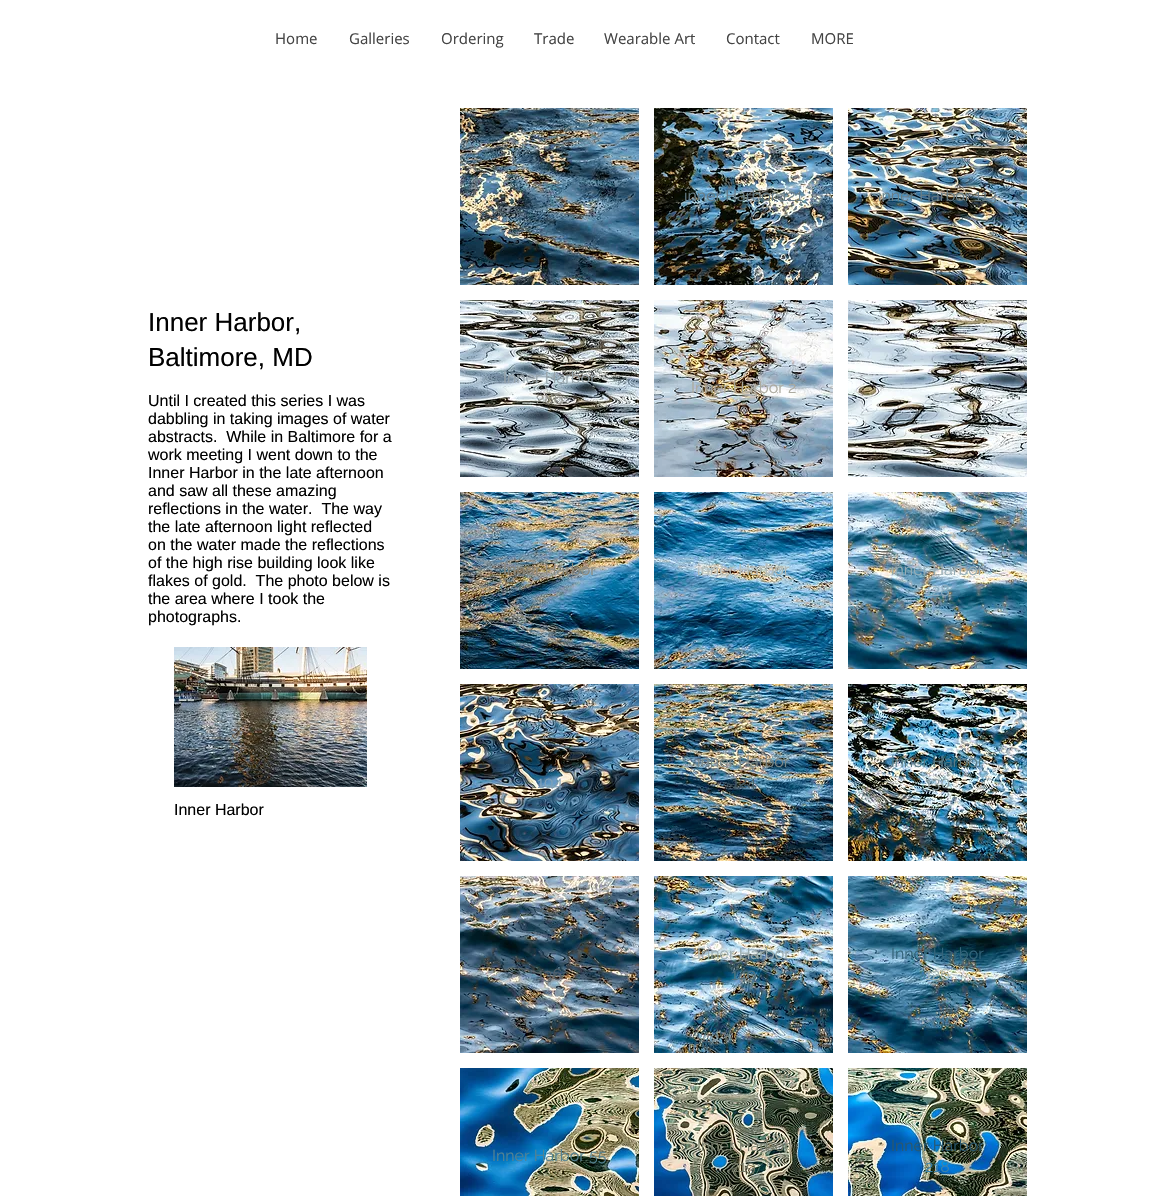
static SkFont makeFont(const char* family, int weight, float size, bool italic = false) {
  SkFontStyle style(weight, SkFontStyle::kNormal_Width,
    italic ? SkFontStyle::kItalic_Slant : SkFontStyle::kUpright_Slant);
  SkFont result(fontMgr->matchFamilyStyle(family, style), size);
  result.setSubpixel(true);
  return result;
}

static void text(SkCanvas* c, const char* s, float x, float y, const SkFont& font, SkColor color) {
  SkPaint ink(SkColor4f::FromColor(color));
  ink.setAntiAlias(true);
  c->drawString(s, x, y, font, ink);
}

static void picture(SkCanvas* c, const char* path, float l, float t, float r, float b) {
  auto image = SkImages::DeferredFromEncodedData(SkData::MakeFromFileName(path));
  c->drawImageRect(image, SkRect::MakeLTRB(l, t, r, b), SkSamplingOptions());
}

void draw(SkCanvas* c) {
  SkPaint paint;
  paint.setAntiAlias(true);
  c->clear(0xffffffff);
  SkFont face1 = makeFont("Open Sans", 400, 15);
  text(c, "Home", 275, 44, face1, 0xff444444);
  text(c, "Galleries", 349, 44, face1, 0xff444444);
  text(c, "Ordering", 441, 44, face1, 0xff444444);
  text(c, "Trade", 534, 44, face1, 0xff444444);
  text(c, "Wearable Art", 604, 44, face1, 0xff444444);
  text(c, "Contact", 726, 44, face1, 0xff444444);
  text(c, "MORE", 811, 44, face1, 0xff444444);
  SkFont face2 = makeFont("Liberation Sans", 400, 26);
  text(c, "Inner Harbor,", 148, 331, face2, 0xff000000);
  text(c, "Baltimore, MD", 148, 366, face2, 0xff000000);
  SkFont face3 = makeFont("Liberation Sans", 400, 16);
  text(c, "Until I created this series I was", 148, 406, face3, 0xff000000);
  text(c, "dabbling in taking images of water", 148, 424, face3, 0xff000000);
  text(c, "abstracts.  While in Baltimore for a", 148, 442, face3, 0xff000000);
  text(c, "work meeting I went down to the", 148, 460, face3, 0xff000000);
  text(c, "Inner Harbor in the late afternoon", 148, 478, face3, 0xff000000);
  text(c, "and saw all these amazing", 148, 496, face3, 0xff000000);
  text(c, "reflections in the water.  The way", 148, 514, face3, 0xff000000);
  text(c, "the late afternoon light reflected", 148, 532, face3, 0xff000000);
  text(c, "on the water made the reflections", 148, 550, face3, 0xff000000);
  text(c, "of the high rise building look like", 148, 568, face3, 0xff000000);
  text(c, "flakes of gold.  The photo below is", 148, 586, face3, 0xff000000);
  text(c, "the area where I took the", 148, 604, face3, 0xff000000);
  text(c, "photographs.", 148, 622, face3, 0xff000000);
  picture(c, "img_01.png", 460, 108, 639, 285);
  picture(c, "img_02.png", 654, 108, 833, 285);
  SkFont face4 = makeFont("Raleway", 400, 16);
  text(c, "inner Harbor 121", 684, 201, face4, 0xff687d86);
  picture(c, "img_03.png", 848, 108, 1027, 285);
  text(c, "inner Harbor 113", 878, 201, face4, 0xff687d86);
  picture(c, "img_04.png", 460, 300, 639, 477);
  text(c, "Inner Harbor", 503, 383, face4, 0xff97a3a9);
  text(c, "286", 536, 404, face4, 0xff96968f);
  picture(c, "img_05.png", 654, 300, 833, 477);
  text(c, "Inner Harbor 2", 691, 393, face4, 0xffacaa9f);
  picture(c, "img_06.png", 848, 300, 1027, 477);
  text(c, "rb", 953, 383, face4, 0xffa7b4bd);
  text(c, "284", 924, 404, face4, 0xffc4d1d8);
  picture(c, "img_07.png", 460, 492, 639, 669);
  text(c, "Inner Harbor", 503, 575, face4, 0xff8a897e);
  picture(c, "img_08.png", 654, 492, 833, 669);
  text(c, "inner Harbor", 697, 575, face4, 0xffb2bbb8);
  picture(c, "img_09.png", 848, 492, 1027, 669);
  text(c, "inner Harbor", 891, 575, face4, 0xff95acb5);
  text(c, "128", 925, 596, face4, 0xff89aabd);
  picture(c, "img_10.png", 460, 684, 639, 861);
  text(c, "104", 537, 788, face4, 0xff80a1b8);
  picture(c, "img_11.png", 654, 684, 833, 861);
  text(c, "inner Harbor", 697, 767, face4, 0xff7b898a);
  text(c, "124", 732, 788, face4, 0xff4b616b);
  picture(c, "img_12.png", 848, 684, 1027, 861);
  text(c, "inner Harbor", 891, 767, face4, 0xff597b86);
  text(c, "130", 925, 788, face4, 0xff8c9ca0);
  picture(c, "img_13.png", 460, 876, 639, 1053);
  text(c, "136", 537, 980, face4, 0xff54616a);
  picture(c, "img_14.png", 654, 876, 833, 1053);
  text(c, "Inner Harbor", 697, 959, face4, 0xff9bacaf);
  text(c, "140", 731, 980, face4, 0xff537482);
  picture(c, "img_15.png", 848, 876, 1027, 1053);
  text(c, "Inner Harbor", 891, 959, face4, 0xff34657b);
  text(c, "126", 925, 980, face4, 0xffa4b6b3);
  picture(c, "img_16.png", 460, 1068, 639, 1196);
  text(c, "Inner Harbor 55", 492, 1161, face4, 0xff538292);
  picture(c, "img_17.png", 654, 1068, 833, 1196);
  text(c, "Inner Harbor", 697, 1151, face4, 0xff797e6d);
  text(c, "219", 731, 1172, face4, 0xff767a67);
  picture(c, "img_18.png", 848, 1068, 1027, 1196);
  text(c, "Inner Harbor", 891, 1151, face4, 0xff29576e);
  text(c, "218", 925, 1172, face4, 0xff3c82aa);
  picture(c, "img_19.png", 174, 647, 367, 787);
  text(c, "Inner Harbor", 174, 815, face3, 0xff000000);
}
